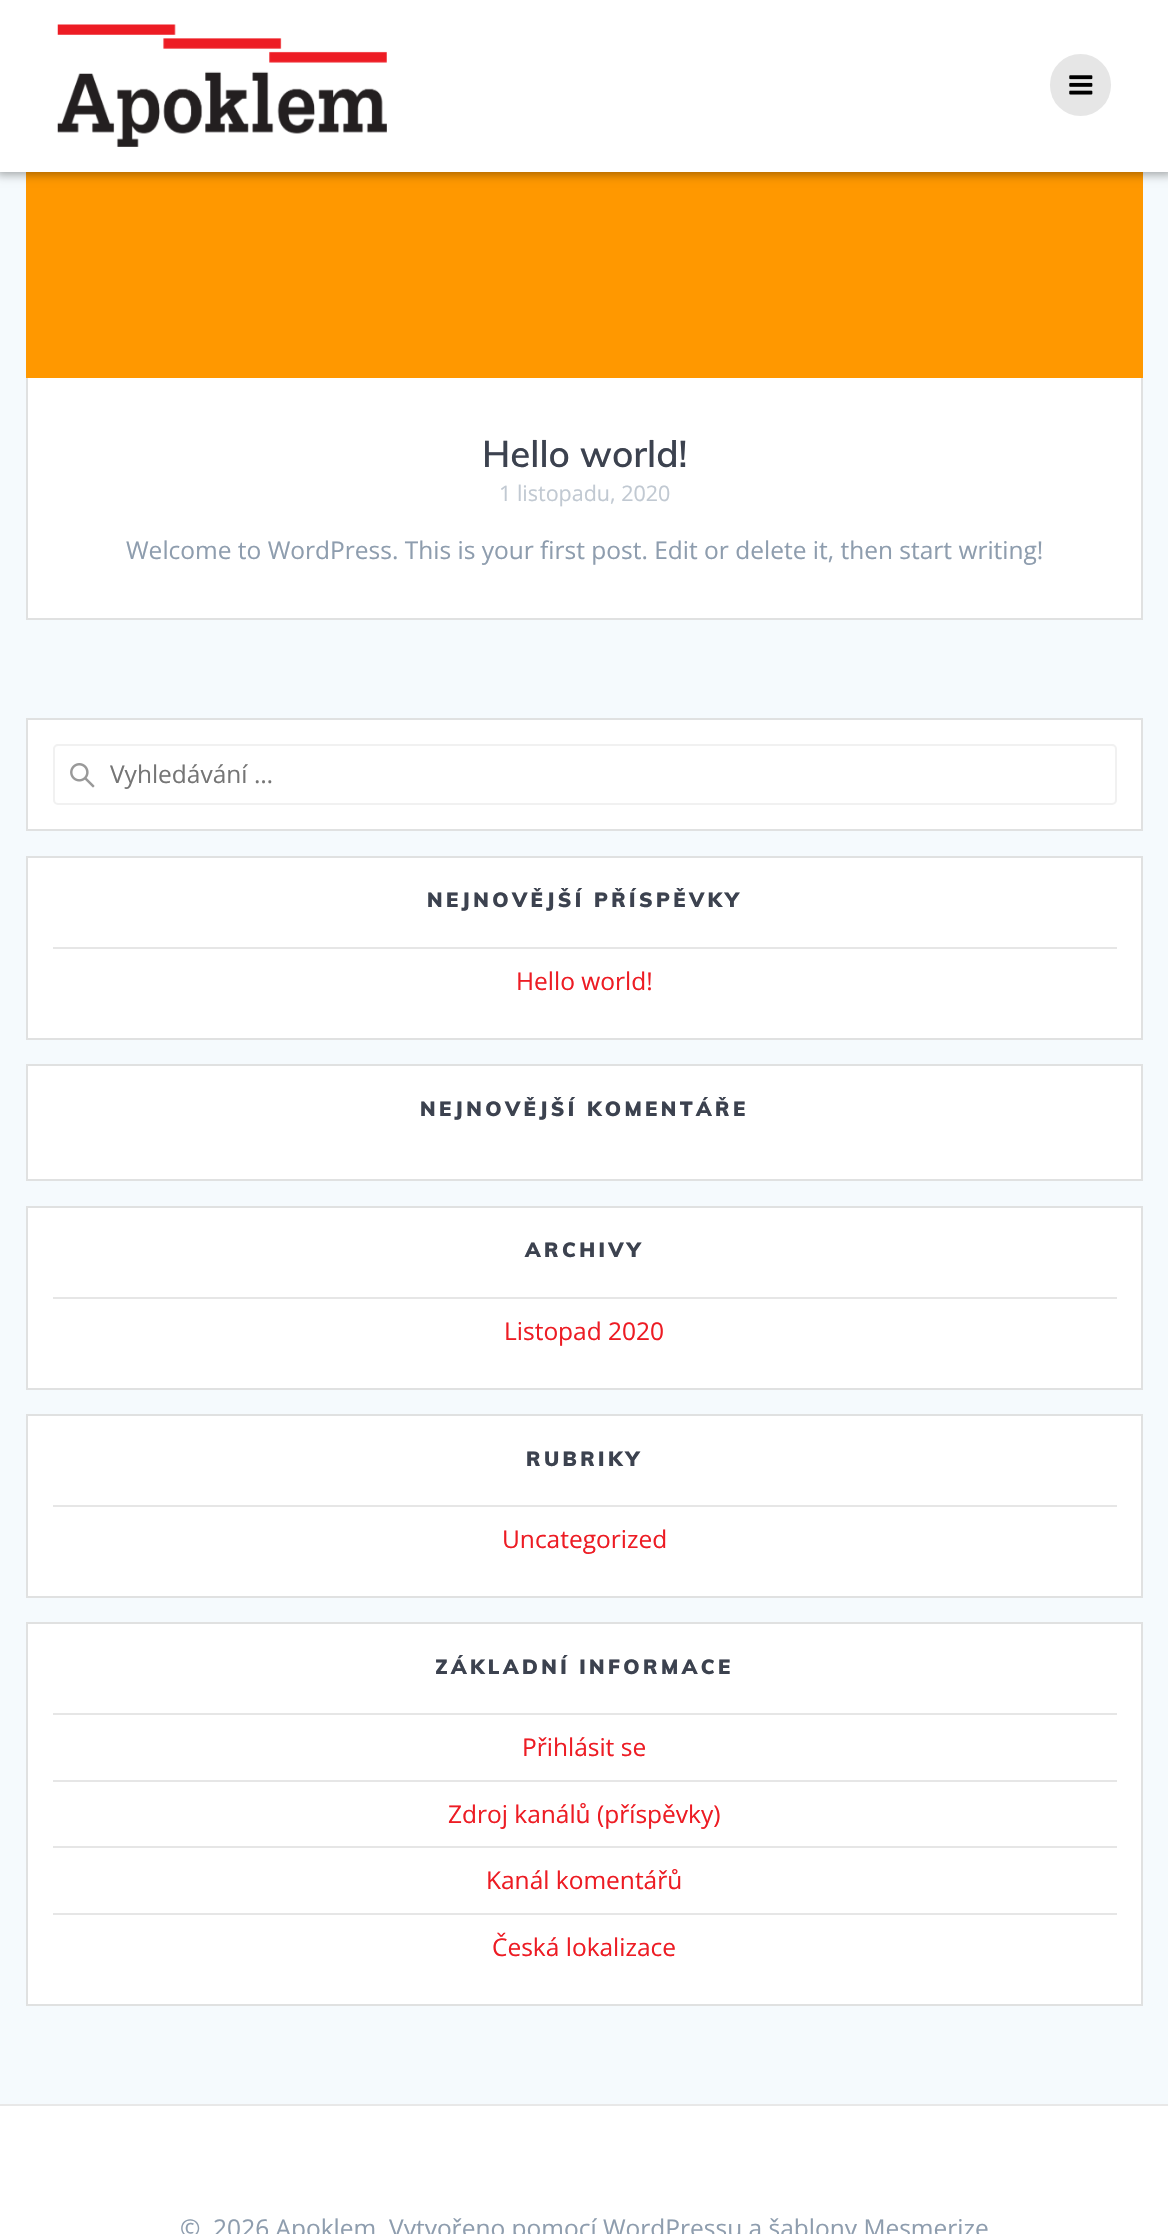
static SkFont makeFont(const char* family, int weight, float size, bool italic = false) {
  SkFontStyle style(weight, SkFontStyle::kNormal_Width,
    italic ? SkFontStyle::kItalic_Slant : SkFontStyle::kUpright_Slant);
  SkFont result(fontMgr->matchFamilyStyle(family, style), size);
  result.setSubpixel(true);
  return result;
}

static void text(SkCanvas* c, const char* s, float x, float y, const SkFont& font, SkColor color) {
  SkPaint ink(SkColor4f::FromColor(color));
  ink.setAntiAlias(true);
  c->drawString(s, x, y, font, ink);
}

static void spacedText(SkCanvas* c, const char* s, float x, float y, const SkFont& font, const SkPaint& ink, float letter, float word) {
  std::vector<SkGlyphID> glyphs(font.countText(s, strlen(s), SkTextEncoding::kUTF8));
  std::vector<float> xs(glyphs.size());
  font.textToGlyphs(s, strlen(s), SkTextEncoding::kUTF8, glyphs);
  font.getXPos(glyphs, xs, x);
  float extra = 0;
  for (size_t i = 0; i < glyphs.size(); i++) {
    xs[i] += extra;
    extra += letter + word * (glyphs[i] == font.unicharToGlyph(' '));
  }
  c->drawTextBlob(SkTextBlob::MakeFromPosHGlyphs(glyphs, xs, y, font), 0, 0, ink);
}

static void box(SkCanvas* c, float l, float t, float r, float b, SkColor color) {
  SkPaint ink(SkColor4f::FromColor(color));
  ink.setAntiAlias(true);
  c->drawRect(SkRect::MakeLTRB(l, t, r, b), ink);
}

static void roundBox(SkCanvas* c, float l, float t, float r, float b, float radius, SkColor color) {
  SkPaint ink(SkColor4f::FromColor(color));
  ink.setAntiAlias(true);
  c->drawRoundRect(SkRect::MakeLTRB(l, t, r, b), radius, radius, ink);
}

static void picture(SkCanvas* c, const char* path, float l, float t, float r, float b) {
  auto image = SkImages::DeferredFromEncodedData(SkData::MakeFromFileName(path));
  c->drawImageRect(image, SkRect::MakeLTRB(l, t, r, b), SkSamplingOptions());
}

void draw(SkCanvas* c) {
  SkPaint paint;
  paint.setAntiAlias(true);
  c->clear(0xffffffff);
  box(c, 0, 172, 1168, 2104, 0xfff5fafd);
  box(c, 28, 378, 1141, 618, 0xffffffff);
  paint.setStyle(SkPaint::kStroke_Style);
  paint.setStrokeWidth(2);
  paint.setColor(0xffe0e1e1);
  c->drawRect(SkRect::MakeLTRB(27, -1, 1142, 619), paint);
  box(c, 26, 172, 1143, 378, 0xffff9800);
  paint.setStyle(SkPaint::kFill_Style);
  paint.setColor(0x54000000);
  paint.setMaskFilter(SkMaskFilter::MakeBlur(kNormal_SkBlurStyle, 4.5f));
  c->drawRect(SkRect::MakeLTRB(-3, -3, 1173, 175), paint);
  paint.setMaskFilter(nullptr);
  box(c, 0, 0, 1168, 172, 0xffffffff);
  picture(c, "img_01.png", 57, 24, 387, 147);
  roundBox(c, 1050, 54, 1111, 116, 30.5f, 0xffe6e6e6);
  picture(c, "img_02.png", 1069, 75, 1093, 95);
  SkFont face1 = makeFont("Muli", 600, 36.75f);
  text(c, "Hello world!", 482, 467, face1, 0xff3c424f);
  SkFont face2 = makeFont("Open Sans", 400, 21.5f);
  text(c, "1 listopadu, 2020", 499, 501, face2, 0xffc1c9d2);
  SkFont face3 = makeFont("Open Sans", 400, 24.5f);
  text(c, "Welcome to WordPress. This is your first post. Edit or delete it, then start writing!", 126, 559, face3, 0xff8e9dae);
  paint.setColor(0xffffffff);
  c->drawRect(SkRect::MakeLTRB(27, 719, 1142, 830), paint);
  paint.setStyle(SkPaint::kStroke_Style);
  paint.setColor(0xffe0e1e1);
  c->drawRect(SkRect::MakeLTRB(27, 719, 1142, 830), paint);
  picture(c, "img_03.png", 70, 763, 95, 788);
  paint.setColor(0xfff1f1f1);
  c->drawRoundRect(SkRect::MakeLTRB(54, 745, 1116, 804), 4, 4, paint);
  text(c, "Vyhledávání …", 110, 783, face3, 0xff757575);
  paint.setStyle(SkPaint::kFill_Style);
  paint.setColor(0xffffffff);
  c->drawRect(SkRect::MakeLTRB(27, 857, 1142, 1039), paint);
  paint.setStyle(SkPaint::kStroke_Style);
  paint.setColor(0xffe0e1e1);
  c->drawRect(SkRect::MakeLTRB(27, 857, 1142, 1039), paint);
  SkFont face4 = makeFont("Muli", 900, 20.3f);
  paint.setStyle(SkPaint::kFill_Style);
  paint.setColor(0xff3c424f);
  spacedText(c, "NEJNOVĚJŠÍ PŘÍSPĚVKY", 427, 907, face4, paint, 3.4f, 0);
  box(c, 53, 947, 1117, 949, 0xffe6e6e6);
  text(c, "Hello world!", 516, 990, face3, 0xffed1c24);
  paint.setColor(0xffffffff);
  c->drawRect(SkRect::MakeLTRB(27, 1065, 1142, 1180), paint);
  paint.setStyle(SkPaint::kStroke_Style);
  paint.setColor(0xffe0e1e1);
  c->drawRect(SkRect::MakeLTRB(27, 1065, 1142, 1180), paint);
  paint.setStyle(SkPaint::kFill_Style);
  paint.setColor(0xff3c424f);
  spacedText(c, "NEJNOVĚJŠÍ KOMENTÁŘE", 420, 1116, face4, paint, 3.4f, 0);
  paint.setColor(0xffffffff);
  c->drawRect(SkRect::MakeLTRB(27, 1207, 1142, 1389), paint);
  paint.setStyle(SkPaint::kStroke_Style);
  paint.setColor(0xffe0e1e1);
  c->drawRect(SkRect::MakeLTRB(27, 1207, 1142, 1389), paint);
  paint.setStyle(SkPaint::kFill_Style);
  paint.setColor(0xff3c424f);
  spacedText(c, "ARCHIVY", 525, 1257, face4, paint, 3.4f, 0);
  box(c, 53, 1297, 1117, 1299, 0xffe6e6e6);
  text(c, "Listopad 2020", 504, 1340, face3, 0xffed1c24);
  paint.setColor(0xffffffff);
  c->drawRect(SkRect::MakeLTRB(27, 1415, 1142, 1597), paint);
  paint.setStyle(SkPaint::kStroke_Style);
  paint.setColor(0xffe0e1e1);
  c->drawRect(SkRect::MakeLTRB(27, 1415, 1142, 1597), paint);
  paint.setStyle(SkPaint::kFill_Style);
  paint.setColor(0xff3c424f);
  spacedText(c, "RUBRIKY", 526, 1466, face4, paint, 3.4f, 0);
  box(c, 53, 1505, 1117, 1507, 0xffe6e6e6);
  text(c, "Uncategorized", 502, 1548, face3, 0xffed1c24);
  paint.setColor(0xffffffff);
  c->drawRect(SkRect::MakeLTRB(27, 1623, 1142, 2005), paint);
  paint.setStyle(SkPaint::kStroke_Style);
  paint.setColor(0xffe0e1e1);
  c->drawRect(SkRect::MakeLTRB(27, 1623, 1142, 2005), paint);
  paint.setStyle(SkPaint::kFill_Style);
  paint.setColor(0xff3c424f);
  spacedText(c, "ZÁKLADNÍ INFORMACE", 435, 1674, face4, paint, 3.4f, 0);
  box(c, 53, 1713, 1117, 1715, 0xffe6e6e6);
  text(c, "Přihlásit se", 522, 1756, face3, 0xffed1c24);
  box(c, 53, 1780, 1117, 1782, 0xffe6e6e6);
  text(c, "Zdroj kanálů (příspěvky)", 448, 1823, face3, 0xffed1c24);
  box(c, 53, 1846, 1117, 1848, 0xffe6e6e6);
  text(c, "Kanál komentářů", 486, 1889, face3, 0xffed1c24);
  box(c, 53, 1913, 1117, 1915, 0xffe6e6e6);
  text(c, "Česká lokalizace", 492, 1956, face3, 0xffed1c24);
  box(c, 0, 2104, 1168, 2106, 0xffe8e8e8);
  text(c, "©  2026 Apoklem. Vytvořeno pomocí WordPressu a šablony Mesmerize", 180, 2237, face3, 0xff8e9dae);
}
